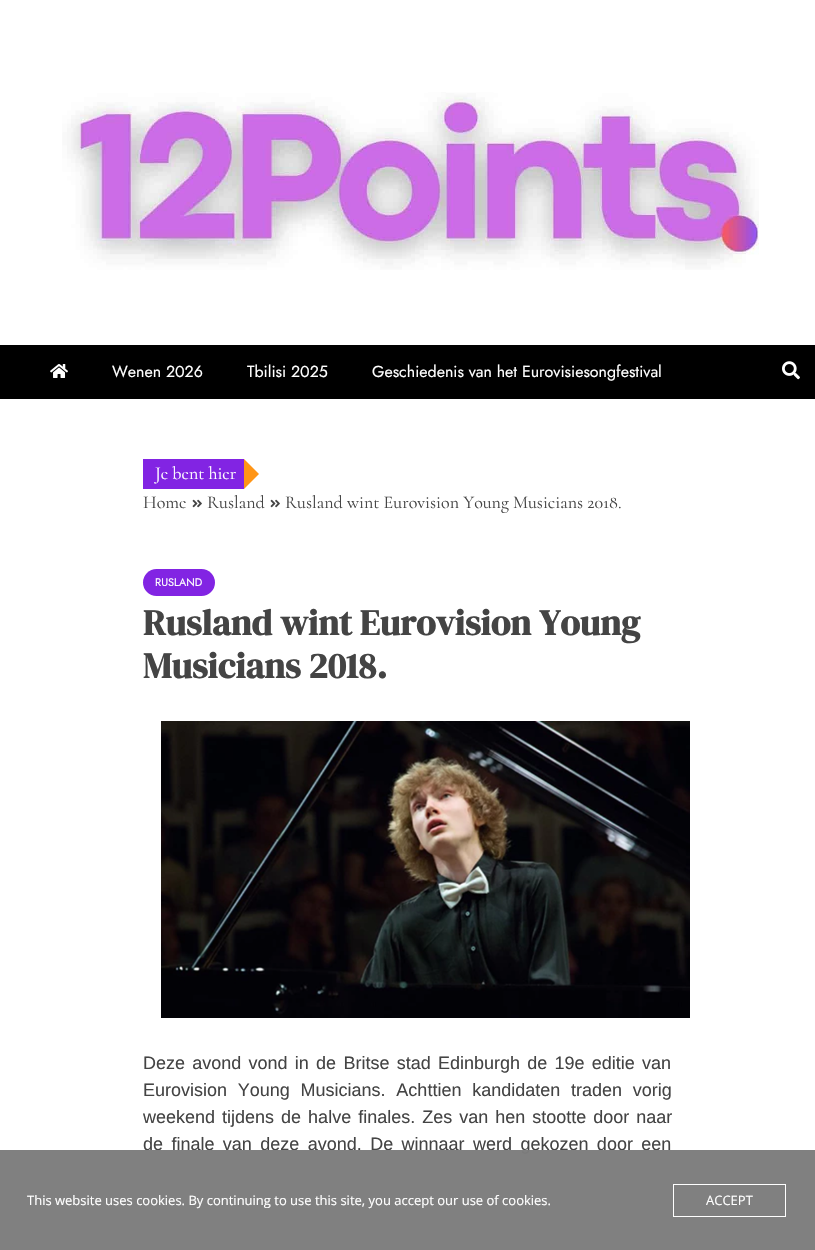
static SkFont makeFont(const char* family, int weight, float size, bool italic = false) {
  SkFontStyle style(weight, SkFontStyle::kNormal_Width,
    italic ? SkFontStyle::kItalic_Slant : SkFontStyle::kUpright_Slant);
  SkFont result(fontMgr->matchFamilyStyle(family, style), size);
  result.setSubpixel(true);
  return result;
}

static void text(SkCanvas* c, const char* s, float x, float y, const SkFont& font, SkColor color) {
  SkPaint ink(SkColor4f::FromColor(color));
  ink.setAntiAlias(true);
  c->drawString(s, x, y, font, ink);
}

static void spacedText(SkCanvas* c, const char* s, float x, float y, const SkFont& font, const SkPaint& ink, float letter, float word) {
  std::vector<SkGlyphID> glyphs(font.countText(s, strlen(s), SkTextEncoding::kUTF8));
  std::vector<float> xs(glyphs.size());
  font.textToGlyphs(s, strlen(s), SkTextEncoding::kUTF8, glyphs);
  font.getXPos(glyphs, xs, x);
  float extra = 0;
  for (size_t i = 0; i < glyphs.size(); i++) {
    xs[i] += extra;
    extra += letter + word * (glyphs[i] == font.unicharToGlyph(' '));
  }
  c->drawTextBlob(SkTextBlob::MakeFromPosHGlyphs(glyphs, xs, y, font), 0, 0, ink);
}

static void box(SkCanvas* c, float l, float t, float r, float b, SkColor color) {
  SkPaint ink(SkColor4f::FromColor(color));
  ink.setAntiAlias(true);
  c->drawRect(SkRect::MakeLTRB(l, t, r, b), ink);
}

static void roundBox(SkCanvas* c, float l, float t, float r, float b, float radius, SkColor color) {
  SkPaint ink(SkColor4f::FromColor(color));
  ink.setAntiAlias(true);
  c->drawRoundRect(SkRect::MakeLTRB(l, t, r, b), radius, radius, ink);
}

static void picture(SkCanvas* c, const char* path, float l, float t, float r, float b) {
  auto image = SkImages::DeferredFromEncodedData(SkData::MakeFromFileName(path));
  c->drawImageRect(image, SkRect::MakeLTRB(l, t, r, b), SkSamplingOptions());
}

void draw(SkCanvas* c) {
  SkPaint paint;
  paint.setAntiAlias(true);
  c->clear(0xffffffff);
  picture(c, "img_01.png", 62, 92, 759, 270);
  box(c, 0, 345, 815, 399, 0xff000000);
  picture(c, "img_02.png", 50, 364, 68, 378);
  SkFont face1 = makeFont("Jost", 400, 16);
  text(c, "Wenen 2026", 112, 377, face1, 0xffffffff);
  text(c, "Tbilisi 2025", 247, 377, face1, 0xffffffff);
  text(c, "Geschiedenis van het Eurovisiesongfestival", 372, 377, face1, 0xffffffff);
  picture(c, "img_03.png", 782, 361, 800, 380);
  box(c, 143, 459, 244, 489, 0xff8224e3);
  SkFont face2 = makeFont("Cormorant", 400, 18);
  text(c, "Je bent hier", 155, 479, face2, 0xffffffff);
  paint.setColor(0xffff9516);
  c->drawPath(SkPathBuilder().moveTo(244, 489).lineTo(244, 459).lineTo(259, 474).close().detach(), paint);
  text(c, "Home", 143, 508, face2, 0xff444444);
  picture(c, "img_04.png", 192, 499, 202, 508);
  text(c, "Rusland", 207, 508, face2, 0xff444444);
  picture(c, "img_04.png", 270, 499, 280, 508);
  text(c, "Rusland wint Eurovision Young Musicians 2018.", 285, 508, face2, 0xff444444);
  roundBox(c, 143, 569, 215, 596, 13.5f, 0xff8224e3);
  SkFont face3 = makeFont("Jost", 400, 11);
  text(c, "RUSLAND", 155, 586, face3, 0xffffffff);
  SkFont face4 = makeFont("DM Serif Display", 700, 36);
  text(c, "Rusland wint Eurovision Young", 143, 635, face4, 0xff444444);
  text(c, "Musicians 2018.", 143, 678, face4, 0xff444444);
  picture(c, "img_05.png", 161, 721, 690, 1018);
  SkFont face5 = makeFont("Liberation Sans", 400, 18);
  paint.setColor(0xff444444);
  spacedText(c, "Deze avond vond in de Britse stad Edinburgh de 19e editie van", 143, 1069, face5, paint, 0, 2.25f);
  spacedText(c, "Eurovision Young Musicians. Achttien kandidaten traden vorig", 143, 1096, face5, paint, 0, 5.75f);
  spacedText(c, "weekend tijdens de halve finales. Zes van hen stootte door naar", 143, 1123, face5, paint, 0, 2);
  spacedText(c, "de finale van deze avond. De winnaar werd gekozen door een", 143, 1150, face5, paint, 0, 3.4f);
  box(c, 0, 1150, 815, 1250, 0xf77c7c7c);
  SkFont face6 = makeFont("Open Sans", 400, 13);
  text(c, "This website uses cookies. By continuing to use this site, you accept our use of cookies.", 27, 1205, face6, 0xffffffff);
  paint.setStyle(SkPaint::kStroke_Style);
  paint.setStrokeWidth(1);
  paint.setColor(0xffffffff);
  c->drawRect(SkRect::MakeLTRB(673.5f, 1184.5f, 785.5f, 1216.5f), paint);
  text(c, "ACCEPT", 706, 1205, face6, 0xffffffff);
}
